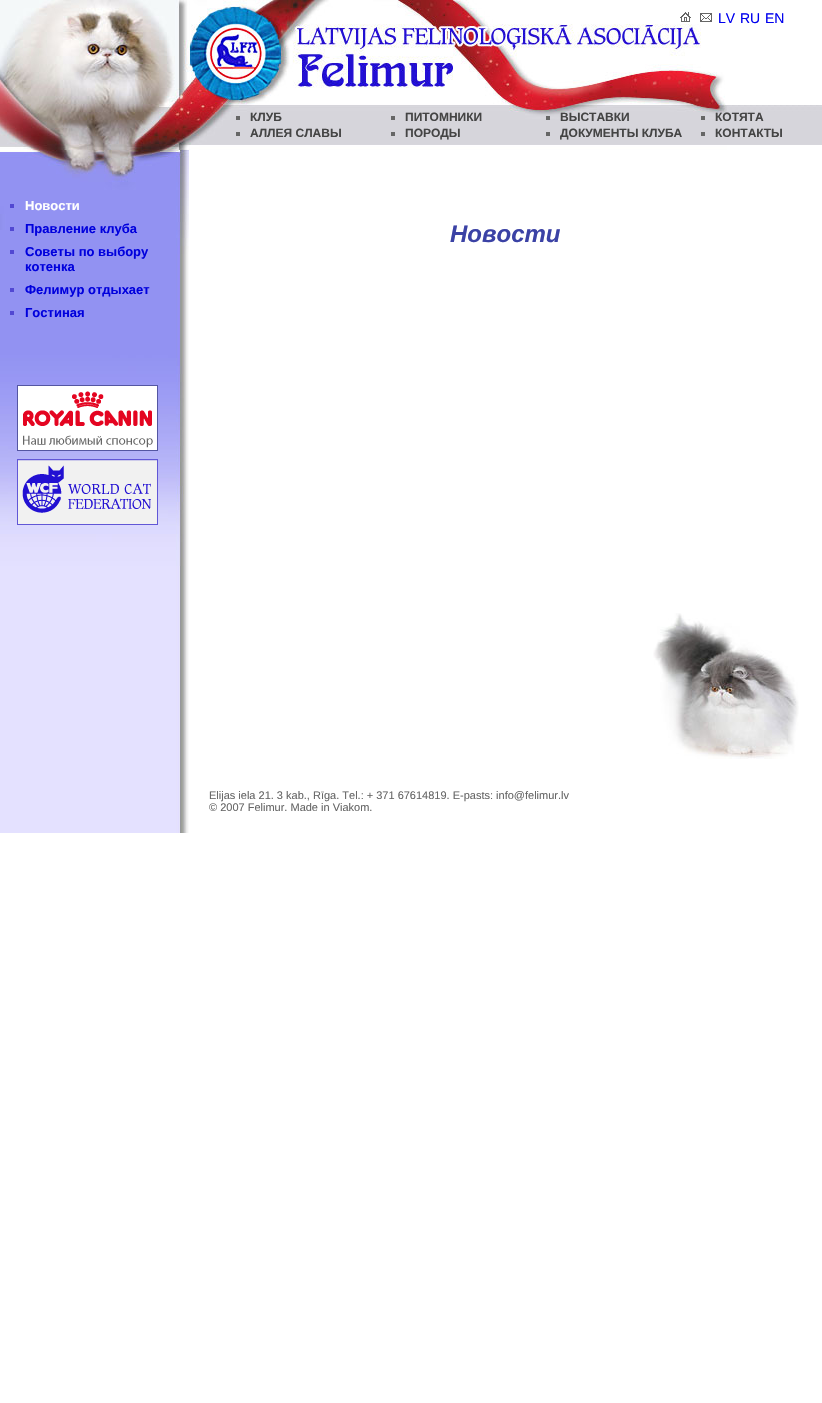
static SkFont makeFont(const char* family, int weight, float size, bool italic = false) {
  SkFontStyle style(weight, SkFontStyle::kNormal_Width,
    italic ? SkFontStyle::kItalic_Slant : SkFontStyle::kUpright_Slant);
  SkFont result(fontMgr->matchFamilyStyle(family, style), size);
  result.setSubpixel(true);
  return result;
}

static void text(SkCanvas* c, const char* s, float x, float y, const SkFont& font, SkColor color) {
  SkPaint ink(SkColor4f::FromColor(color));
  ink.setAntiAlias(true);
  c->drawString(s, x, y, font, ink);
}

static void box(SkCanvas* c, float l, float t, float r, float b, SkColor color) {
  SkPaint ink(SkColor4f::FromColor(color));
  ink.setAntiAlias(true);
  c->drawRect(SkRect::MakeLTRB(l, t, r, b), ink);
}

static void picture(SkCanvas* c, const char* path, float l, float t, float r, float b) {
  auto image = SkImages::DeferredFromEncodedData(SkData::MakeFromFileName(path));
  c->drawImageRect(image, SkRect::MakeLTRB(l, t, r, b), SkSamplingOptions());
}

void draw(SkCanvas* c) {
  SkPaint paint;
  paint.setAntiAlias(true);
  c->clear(0xffffffff);
  picture(c, "img_01.png", 0, 0, 726, 105);
  picture(c, "img_02.png", 680, 12, 691, 22);
  picture(c, "img_03.png", 700, 13, 712, 22);
  SkFont face1 = makeFont("Liberation Sans", 400, 14);
  text(c, "LV", 718, 23, face1, 0xff0000ee);
  text(c, "RU", 740, 23, face1, 0xff0000ee);
  text(c, "EN", 765, 23, face1, 0xff0000ee);
  picture(c, "img_04.png", 727, 105, 822, 145);
  picture(c, "img_05.png", 0, 105, 727, 150);
  box(c, 236, 116, 240, 120, 0xff666666);
  SkFont face2 = makeFont("Liberation Sans", 700, 12);
  text(c, "КЛУБ", 250, 121, face2, 0xff444444);
  box(c, 391, 116, 395, 120, 0xff666666);
  text(c, "ПИТОМНИКИ", 405, 121, face2, 0xff444444);
  box(c, 546, 116, 550, 120, 0xff666666);
  text(c, "ВЫСТАВКИ", 560, 121, face2, 0xff444444);
  box(c, 701, 116, 705, 120, 0xff666666);
  text(c, "КОТЯТА", 715, 121, face2, 0xff444444);
  box(c, 236, 132, 240, 136, 0xff666666);
  text(c, "АЛЛЕЯ СЛАВЫ", 250, 137, face2, 0xff444444);
  box(c, 391, 132, 395, 136, 0xff666666);
  text(c, "ПОРОДЫ", 405, 137, face2, 0xff444444);
  box(c, 546, 132, 550, 136, 0xff666666);
  text(c, "ДОКУМЕНТЫ КЛУБА", 560, 137, face2, 0xff444444);
  box(c, 701, 132, 705, 136, 0xff666666);
  text(c, "КОНТАКТЫ", 715, 137, face2, 0xff444444);
  picture(c, "img_06.png", 0, 566, 189, 833);
  picture(c, "img_07.png", 0, 150, 189, 566);
  box(c, 10, 204, 14, 208, 0xff5248d2);
  SkFont face3 = makeFont("Liberation Sans", 700, 13);
  text(c, "Новости", 25, 210, face3, 0xffffffff);
  box(c, 10, 227, 14, 231, 0xff5248d2);
  text(c, "Правление клуба", 25, 233, face3, 0xff0000dd);
  box(c, 10, 250, 14, 254, 0xff5248d2);
  text(c, "Советы по выбору", 25, 256, face3, 0xff0000dd);
  text(c, "котенка", 25, 271, face3, 0xff0000dd);
  box(c, 10, 288, 14, 292, 0xff5248d2);
  text(c, "Фелимур отдыхает", 25, 294, face3, 0xff0000dd);
  box(c, 10, 311, 14, 315, 0xff5248d2);
  text(c, "Гостиная", 25, 317, face3, 0xff0000dd);
  picture(c, "img_08.png", 17, 385, 158, 451);
  picture(c, "img_09.png", 17, 459, 158, 525);
  SkFont face4 = makeFont("Liberation Sans", 700, 24, true);
  text(c, "Новости", 450, 242, face4, 0xff3b42a5);
  picture(c, "img_10.png", 653, 613, 799, 759);
  SkFont face5 = makeFont("Liberation Sans", 400, 11);
  text(c, "Elijas iela 21. 3 kab., Rīga. Теl.: + 371 67614819. E-pasts: info@felimur.lv", 209, 799, face5, 0xff666666);
  text(c, "© 2007 Felimur. Made in Viakom.", 209, 811, face5, 0xff666666);
}
